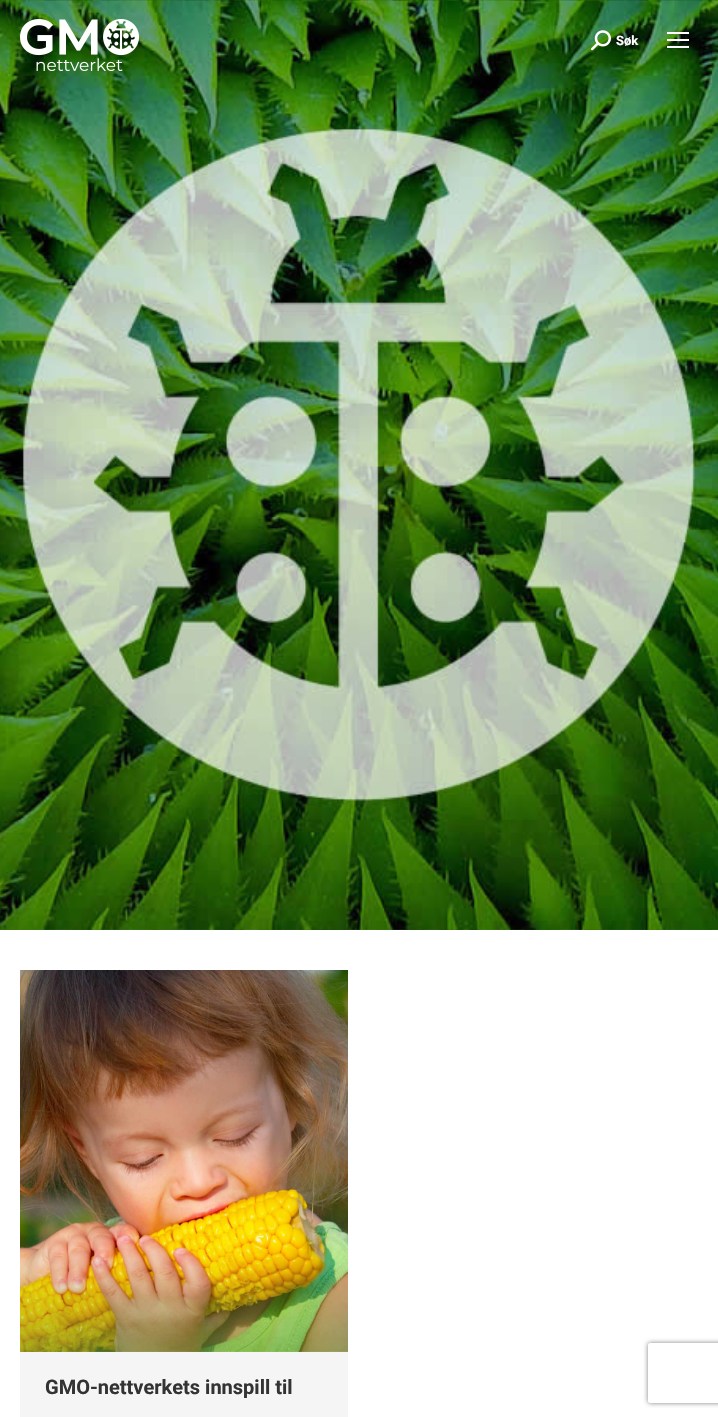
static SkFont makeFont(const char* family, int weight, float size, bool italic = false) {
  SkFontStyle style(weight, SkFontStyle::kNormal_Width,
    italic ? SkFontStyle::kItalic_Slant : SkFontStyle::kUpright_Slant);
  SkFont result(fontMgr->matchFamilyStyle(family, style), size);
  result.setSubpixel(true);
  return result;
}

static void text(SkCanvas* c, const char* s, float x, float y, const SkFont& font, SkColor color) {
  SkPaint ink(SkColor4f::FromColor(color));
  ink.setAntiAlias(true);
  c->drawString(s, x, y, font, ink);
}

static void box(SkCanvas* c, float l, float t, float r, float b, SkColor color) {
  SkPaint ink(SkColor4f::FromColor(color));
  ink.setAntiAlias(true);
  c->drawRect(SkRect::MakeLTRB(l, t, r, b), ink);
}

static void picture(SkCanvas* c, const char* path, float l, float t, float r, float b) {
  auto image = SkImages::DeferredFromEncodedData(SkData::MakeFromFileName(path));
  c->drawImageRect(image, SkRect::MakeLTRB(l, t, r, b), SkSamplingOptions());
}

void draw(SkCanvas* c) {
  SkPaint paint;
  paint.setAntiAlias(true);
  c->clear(0xffffffff);
  picture(c, "img_01.png", 0, 0, 718, 930);
  picture(c, "img_02.png", 20, 19, 139, 71);
  picture(c, "img_03.png", 591, 30, 611, 51);
  SkFont face1 = makeFont("Roboto", 700, 13);
  text(c, "Søk", 616, 45, face1, 0xffffffff);
  box(c, 667, 32, 689, 34, 0xffffffff);
  box(c, 667, 39, 689, 41, 0xffffffff);
  box(c, 667, 46, 689, 48, 0xffffffff);
  box(c, 20, 1351, 348, 1417, 0xfff5f5f5);
  picture(c, "img_04.png", 20, 970, 348, 1352);
  SkFont face2 = makeFont("Roboto", 700, 20);
  text(c, "GMO-nettverkets innspill til", 45, 1394, face2, 0xff333333);
  c->save();
  c->clipPath(SkPathBuilder(SkPathFillType::kEvenOdd).moveTo(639, 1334).lineTo(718, 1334).lineTo(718, 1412).lineTo(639, 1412).close().moveTo(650, 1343).lineTo(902, 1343).cubicTo(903, 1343, 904, 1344, 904, 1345).lineTo(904, 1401).cubicTo(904, 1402, 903, 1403, 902, 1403).lineTo(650, 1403).cubicTo(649, 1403, 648, 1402, 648, 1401).lineTo(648, 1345).cubicTo(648, 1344, 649, 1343, 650, 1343).close().detach(), true);
  paint.setColor(0xff808080);
  paint.setMaskFilter(SkMaskFilter::MakeBlur(kNormal_SkBlurStyle, 2.5f));
  c->drawRoundRect(SkRect::MakeLTRB(648, 1343, 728, 1403), 2, 2, paint);
  paint.setMaskFilter(nullptr);
  c->restore();
}
